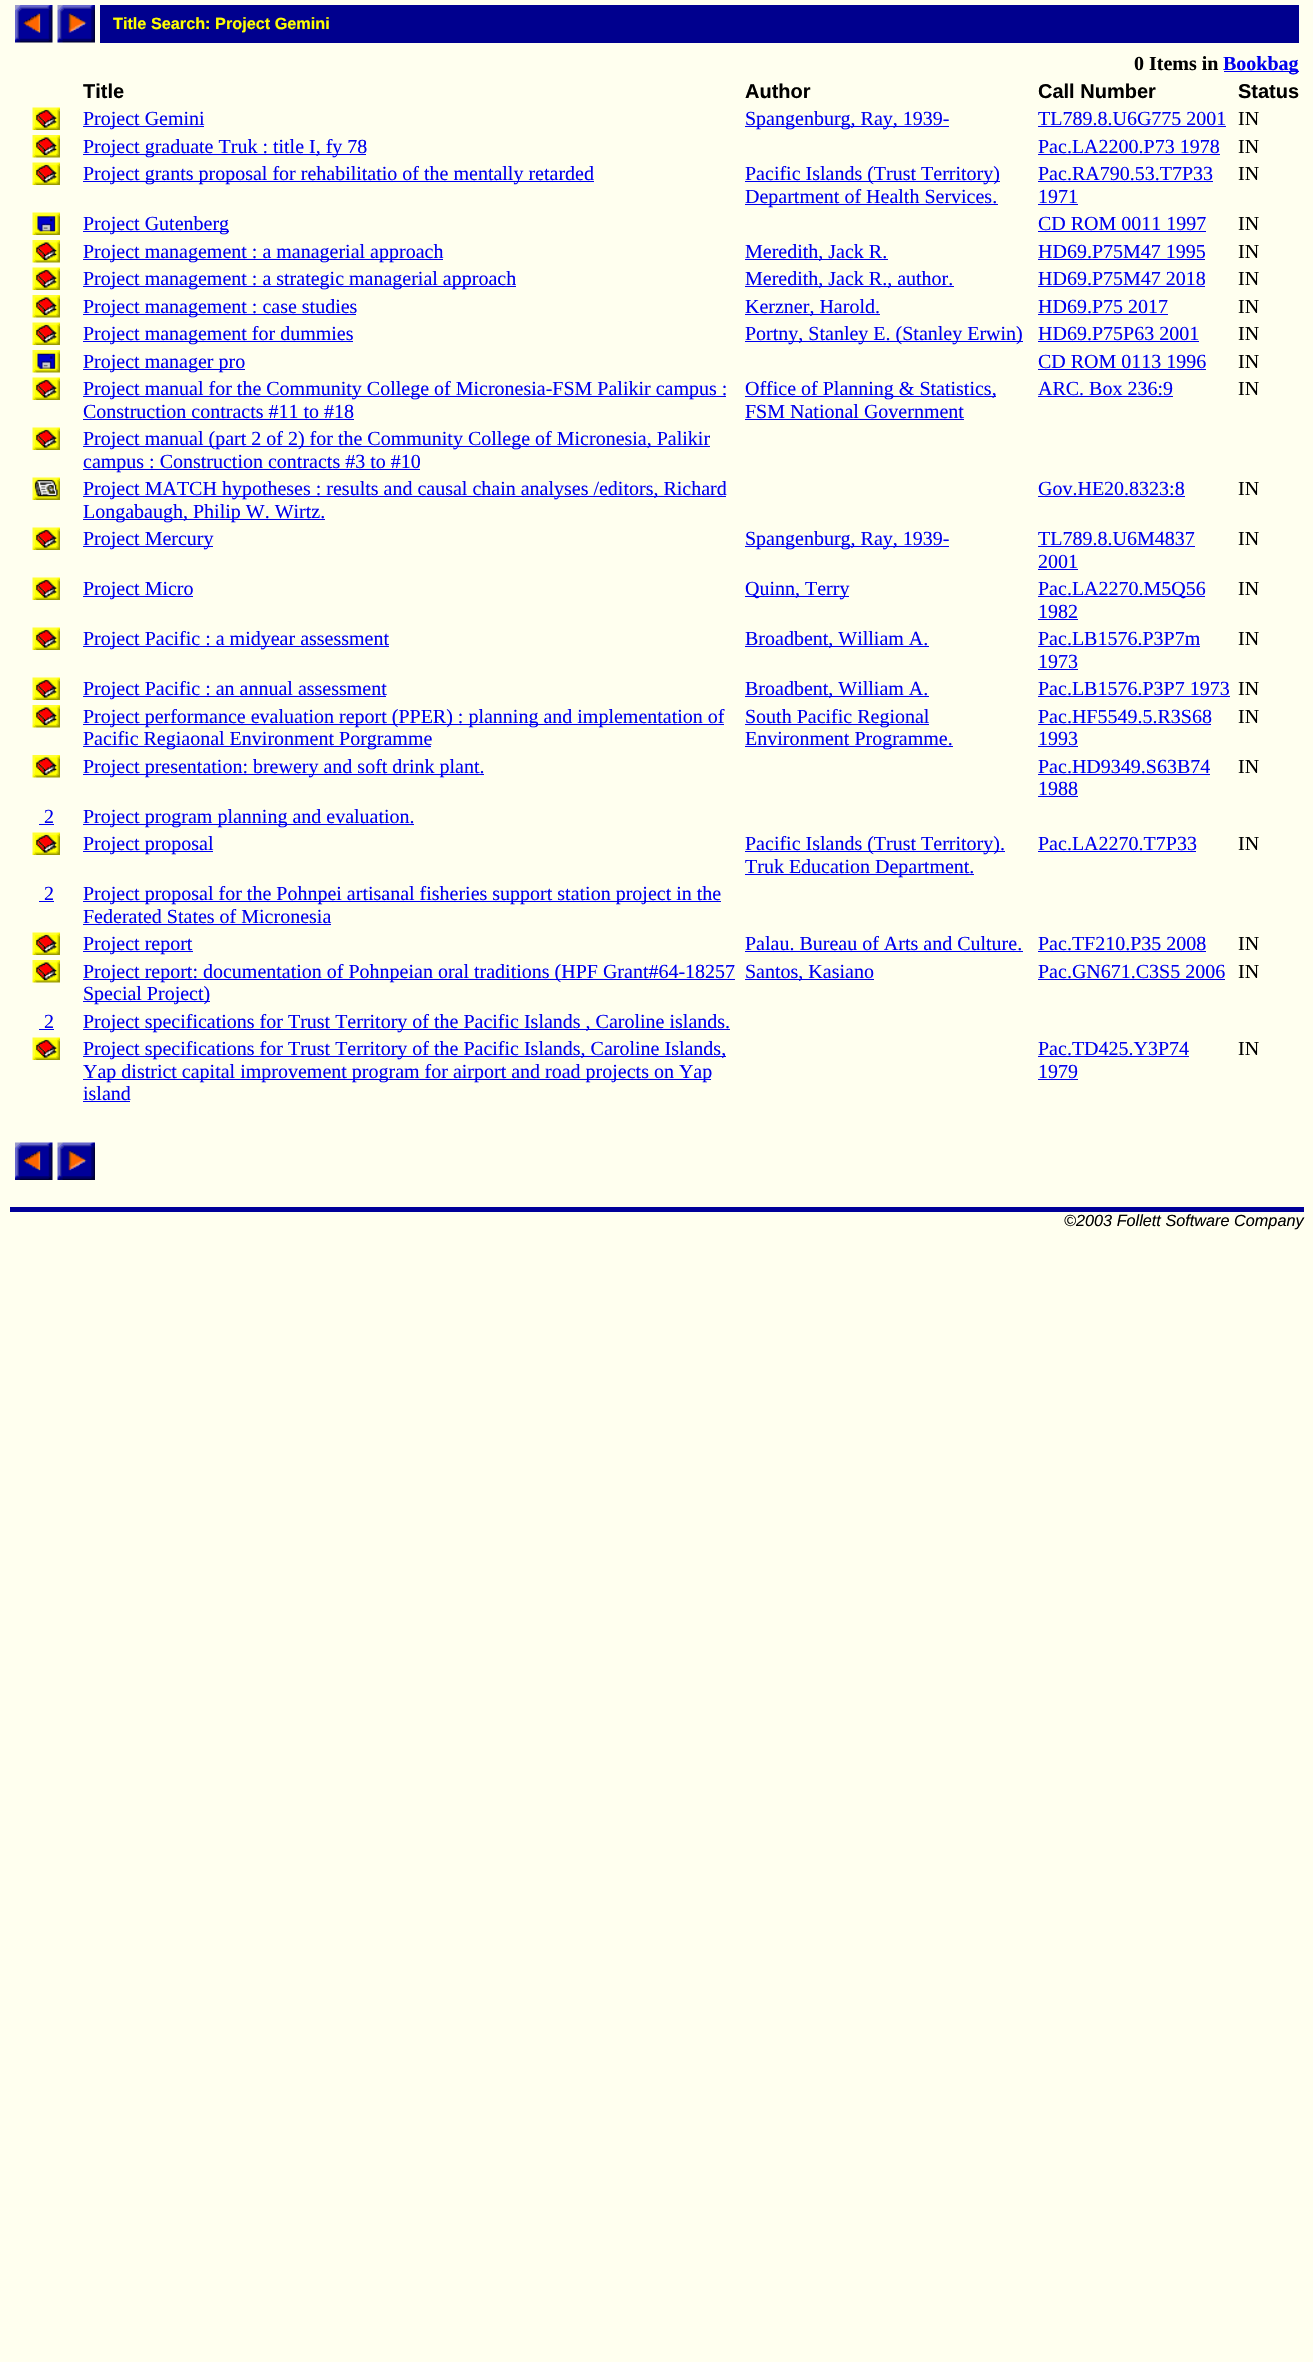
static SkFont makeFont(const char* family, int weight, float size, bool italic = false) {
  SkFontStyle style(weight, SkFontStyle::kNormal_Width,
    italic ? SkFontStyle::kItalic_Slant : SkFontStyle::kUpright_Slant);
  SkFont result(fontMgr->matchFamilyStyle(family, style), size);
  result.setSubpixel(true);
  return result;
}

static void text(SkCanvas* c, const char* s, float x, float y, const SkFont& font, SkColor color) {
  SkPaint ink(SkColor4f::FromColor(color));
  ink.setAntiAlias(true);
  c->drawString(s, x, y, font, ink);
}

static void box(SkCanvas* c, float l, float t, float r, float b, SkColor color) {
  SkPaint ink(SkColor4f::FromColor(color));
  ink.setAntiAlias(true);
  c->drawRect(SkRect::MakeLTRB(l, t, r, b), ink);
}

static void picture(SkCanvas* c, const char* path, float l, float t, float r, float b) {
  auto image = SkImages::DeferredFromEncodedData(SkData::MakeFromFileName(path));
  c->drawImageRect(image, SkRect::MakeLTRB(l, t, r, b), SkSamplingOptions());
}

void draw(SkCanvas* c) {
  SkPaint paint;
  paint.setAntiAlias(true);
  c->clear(0xffffffef);
  picture(c, "img_01.png", 15, 5, 53, 43);
  picture(c, "img_02.png", 57, 5, 95, 43);
  box(c, 100, 5, 1299, 43, 0xff00008e);
  SkFont face1 = makeFont("Liberation Sans", 700, 16.25f);
  text(c, "Title Search: Project Gemini", 113, 29, face1, 0xffffff00);
  SkFont face2 = makeFont("Liberation Serif", 700, 20);
  text(c, "0 Items in", 1134, 70, face2, 0xff000000);
  box(c, 1224, 71, 1299, 72, 0xff0000ee);
  text(c, "Bookbag", 1223, 70, face2, 0xff0000ee);
  SkFont face3 = makeFont("Liberation Sans", 700, 20);
  text(c, "Title", 83, 98, face3, 0xff000000);
  text(c, "Author", 745, 98, face3, 0xff000000);
  text(c, "Call Number", 1038, 98, face3, 0xff000000);
  text(c, "Status", 1238, 98, face3, 0xff000000);
  picture(c, "img_03.png", 32, 107, 60, 130);
  box(c, 83, 126, 204, 127, 0xff0000ee);
  SkFont face4 = makeFont("Liberation Serif", 400, 20);
  text(c, "Project Gemini", 83, 125, face4, 0xff0000ee);
  box(c, 745, 126, 949, 127, 0xff0000ee);
  text(c, "Spangenburg, Ray, 1939-", 745, 125, face4, 0xff0000ee);
  text(c, "TL789.8.U6G775 2001", 1038, 125, face4, 0xff0000ee);
  box(c, 1038, 126, 1226, 127, 0xff0000ee);
  text(c, "IN", 1238, 125, face4, 0xff000000);
  picture(c, "img_04.png", 32, 135, 60, 158);
  box(c, 83, 154, 366, 155, 0xff0000ee);
  text(c, "Project graduate Truk : title I, fy 78", 83, 153, face4, 0xff0000ee);
  text(c, "Pac.LA2200.P73 1978", 1038, 153, face4, 0xff0000ee);
  box(c, 1038, 154, 1220, 155, 0xff0000ee);
  text(c, "IN", 1238, 153, face4, 0xff000000);
  picture(c, "img_03.png", 32, 162, 60, 185);
  box(c, 83, 181, 594, 182, 0xff0000ee);
  text(c, "Project grants proposal for rehabilitatio of the mentally retarded", 83, 180, face4, 0xff0000ee);
  box(c, 745, 181, 1000, 182, 0xff0000ee);
  text(c, "Pacific Islands (Trust Territory)", 745, 180, face4, 0xff0000ee);
  box(c, 745, 204, 998, 205, 0xff0000ee);
  text(c, "Department of Health Services.", 745, 203, face4, 0xff0000ee);
  text(c, "Pac.RA790.53.T7P33", 1038, 180, face4, 0xff0000ee);
  box(c, 1038, 181, 1213, 182, 0xff0000ee);
  text(c, "1971", 1038, 203, face4, 0xff0000ee);
  box(c, 1038, 204, 1078, 205, 0xff0000ee);
  text(c, "IN", 1238, 180, face4, 0xff000000);
  picture(c, "img_05.png", 32, 212, 60, 235);
  box(c, 83, 231, 229, 232, 0xff0000ee);
  text(c, "Project Gutenberg", 83, 230, face4, 0xff0000ee);
  text(c, "CD ROM 0011 1997", 1038, 230, face4, 0xff0000ee);
  box(c, 1038, 231, 1206, 232, 0xff0000ee);
  text(c, "IN", 1238, 230, face4, 0xff000000);
  picture(c, "img_04.png", 32, 240, 60, 263);
  box(c, 83, 259, 443, 260, 0xff0000ee);
  text(c, "Project management : a managerial approach", 83, 258, face4, 0xff0000ee);
  box(c, 745, 259, 888, 260, 0xff0000ee);
  text(c, "Meredith, Jack R.", 745, 258, face4, 0xff0000ee);
  text(c, "HD69.P75M47 1995", 1038, 258, face4, 0xff0000ee);
  box(c, 1038, 259, 1205, 260, 0xff0000ee);
  text(c, "IN", 1238, 258, face4, 0xff000000);
  picture(c, "img_03.png", 32, 267, 60, 290);
  box(c, 83, 286, 516, 287, 0xff0000ee);
  text(c, "Project management : a strategic managerial approach", 83, 285, face4, 0xff0000ee);
  box(c, 745, 286, 954, 287, 0xff0000ee);
  text(c, "Meredith, Jack R., author.", 745, 285, face4, 0xff0000ee);
  text(c, "HD69.P75M47 2018", 1038, 285, face4, 0xff0000ee);
  box(c, 1038, 286, 1205, 287, 0xff0000ee);
  text(c, "IN", 1238, 285, face4, 0xff000000);
  picture(c, "img_04.png", 32, 295, 60, 318);
  box(c, 83, 314, 356, 315, 0xff0000ee);
  text(c, "Project management : case studies", 83, 313, face4, 0xff0000ee);
  box(c, 745, 314, 880, 315, 0xff0000ee);
  text(c, "Kerzner, Harold.", 745, 313, face4, 0xff0000ee);
  text(c, "HD69.P75 2017", 1038, 313, face4, 0xff0000ee);
  box(c, 1038, 314, 1168, 315, 0xff0000ee);
  text(c, "IN", 1238, 313, face4, 0xff000000);
  picture(c, "img_03.png", 32, 322, 60, 345);
  box(c, 83, 341, 353, 342, 0xff0000ee);
  text(c, "Project management for dummies", 83, 340, face4, 0xff0000ee);
  box(c, 745, 341, 1023, 342, 0xff0000ee);
  text(c, "Portny, Stanley E. (Stanley Erwin)", 745, 340, face4, 0xff0000ee);
  text(c, "HD69.P75P63 2001", 1038, 340, face4, 0xff0000ee);
  box(c, 1038, 341, 1199, 342, 0xff0000ee);
  text(c, "IN", 1238, 340, face4, 0xff000000);
  picture(c, "img_06.png", 32, 350, 60, 373);
  box(c, 83, 369, 245, 370, 0xff0000ee);
  text(c, "Project manager pro", 83, 368, face4, 0xff0000ee);
  text(c, "CD ROM 0113 1996", 1038, 368, face4, 0xff0000ee);
  box(c, 1038, 369, 1206, 370, 0xff0000ee);
  text(c, "IN", 1238, 368, face4, 0xff000000);
  picture(c, "img_03.png", 32, 377, 60, 400);
  box(c, 83, 396, 726, 397, 0xff0000ee);
  text(c, "Project manual for the Community College of Micronesia-FSM Palikir campus :", 83, 395, face4, 0xff0000ee);
  text(c, "Construction contracts #11 to #18", 83, 418, face4, 0xff0000ee);
  box(c, 83, 419, 354, 420, 0xff0000ee);
  box(c, 745, 396, 996, 397, 0xff0000ee);
  text(c, "Office of Planning & Statistics,", 745, 395, face4, 0xff0000ee);
  text(c, "FSM National Government", 745, 418, face4, 0xff0000ee);
  box(c, 745, 419, 964, 420, 0xff0000ee);
  text(c, "ARC. Box 236:9", 1038, 395, face4, 0xff0000ee);
  box(c, 1038, 396, 1173, 397, 0xff0000ee);
  text(c, "IN", 1238, 395, face4, 0xff000000);
  picture(c, "img_03.png", 32, 427, 60, 450);
  box(c, 83, 446, 710, 447, 0xff0000ee);
  text(c, "Project manual (part 2 of 2) for the Community College of Micronesia, Palikir", 83, 445, face4, 0xff0000ee);
  box(c, 83, 469, 420, 470, 0xff0000ee);
  text(c, "campus : Construction contracts #3 to #10", 83, 468, face4, 0xff0000ee);
  picture(c, "img_07.png", 32, 477, 60, 500);
  box(c, 83, 496, 726, 497, 0xff0000ee);
  text(c, "Project MATCH hypotheses : results and causal chain analyses /editors, Richard", 83, 495, face4, 0xff0000ee);
  box(c, 83, 519, 325, 520, 0xff0000ee);
  text(c, "Longabaugh, Philip W. Wirtz.", 83, 518, face4, 0xff0000ee);
  text(c, "Gov.HE20.8323:8", 1038, 495, face4, 0xff0000ee);
  box(c, 1038, 496, 1185, 497, 0xff0000ee);
  text(c, "IN", 1238, 495, face4, 0xff000000);
  picture(c, "img_03.png", 32, 527, 60, 550);
  box(c, 83, 546, 213, 547, 0xff0000ee);
  text(c, "Project Mercury", 83, 545, face4, 0xff0000ee);
  box(c, 745, 546, 949, 547, 0xff0000ee);
  text(c, "Spangenburg, Ray, 1939-", 745, 545, face4, 0xff0000ee);
  text(c, "TL789.8.U6M4837", 1038, 545, face4, 0xff0000ee);
  box(c, 1038, 546, 1195, 547, 0xff0000ee);
  text(c, "2001", 1038, 568, face4, 0xff0000ee);
  box(c, 1038, 569, 1078, 570, 0xff0000ee);
  text(c, "IN", 1238, 545, face4, 0xff000000);
  picture(c, "img_08.png", 32, 577, 60, 600);
  box(c, 83, 596, 193, 597, 0xff0000ee);
  text(c, "Project Micro", 83, 595, face4, 0xff0000ee);
  box(c, 745, 596, 849, 597, 0xff0000ee);
  text(c, "Quinn, Terry", 745, 595, face4, 0xff0000ee);
  box(c, 1038, 596, 1205, 597, 0xff0000ee);
  text(c, "Pac.LA2270.M5Q56", 1038, 595, face4, 0xff0000ee);
  text(c, "1982", 1038, 618, face4, 0xff0000ee);
  box(c, 1038, 619, 1078, 620, 0xff0000ee);
  text(c, "IN", 1238, 595, face4, 0xff000000);
  picture(c, "img_03.png", 32, 627, 60, 650);
  box(c, 83, 646, 389, 647, 0xff0000ee);
  text(c, "Project Pacific : a midyear assessment", 83, 645, face4, 0xff0000ee);
  box(c, 745, 646, 929, 647, 0xff0000ee);
  text(c, "Broadbent, William A.", 745, 645, face4, 0xff0000ee);
  text(c, "Pac.LB1576.P3P7m", 1038, 645, face4, 0xff0000ee);
  box(c, 1038, 646, 1200, 647, 0xff0000ee);
  text(c, "1973", 1038, 668, face4, 0xff0000ee);
  box(c, 1038, 669, 1078, 670, 0xff0000ee);
  text(c, "IN", 1238, 645, face4, 0xff000000);
  picture(c, "img_03.png", 32, 677, 60, 700);
  box(c, 83, 696, 386, 697, 0xff0000ee);
  text(c, "Project Pacific : an annual assessment", 83, 695, face4, 0xff0000ee);
  box(c, 745, 696, 929, 697, 0xff0000ee);
  text(c, "Broadbent, William A.", 745, 695, face4, 0xff0000ee);
  text(c, "Pac.LB1576.P3P7 1973", 1038, 695, face4, 0xff0000ee);
  box(c, 1038, 696, 1230, 697, 0xff0000ee);
  text(c, "IN", 1238, 695, face4, 0xff000000);
  picture(c, "img_04.png", 32, 705, 60, 728);
  box(c, 83, 724, 724, 725, 0xff0000ee);
  text(c, "Project performance evaluation report (PPER) : planning and implementation of", 83, 723, face4, 0xff0000ee);
  box(c, 83, 746, 431, 747, 0xff0000ee);
  text(c, "Pacific Regiaonal Environment Porgramme", 83, 745, face4, 0xff0000ee);
  box(c, 745, 724, 929, 725, 0xff0000ee);
  text(c, "South Pacific Regional", 745, 723, face4, 0xff0000ee);
  box(c, 745, 746, 953, 747, 0xff0000ee);
  text(c, "Environment Programme.", 745, 745, face4, 0xff0000ee);
  text(c, "Pac.HF5549.5.R3S68", 1038, 723, face4, 0xff0000ee);
  box(c, 1038, 724, 1211, 725, 0xff0000ee);
  text(c, "1993", 1038, 745, face4, 0xff0000ee);
  box(c, 1038, 746, 1078, 747, 0xff0000ee);
  text(c, "IN", 1238, 723, face4, 0xff000000);
  picture(c, "img_04.png", 32, 755, 60, 778);
  box(c, 83, 774, 484, 775, 0xff0000ee);
  text(c, "Project presentation: brewery and soft drink plant.", 83, 773, face4, 0xff0000ee);
  text(c, "Pac.HD9349.S63B74", 1038, 773, face4, 0xff0000ee);
  box(c, 1038, 774, 1210, 775, 0xff0000ee);
  text(c, "1988", 1038, 795, face4, 0xff0000ee);
  box(c, 1038, 796, 1078, 797, 0xff0000ee);
  text(c, "IN", 1238, 773, face4, 0xff000000);
  text(c, "2", 44, 823, face4, 0xff0000ee);
  box(c, 39, 824, 54, 825, 0xff0000ee);
  box(c, 83, 824, 414, 825, 0xff0000ee);
  text(c, "Project program planning and evaluation.", 83, 823, face4, 0xff0000ee);
  picture(c, "img_03.png", 32, 832, 60, 855);
  box(c, 83, 851, 213, 852, 0xff0000ee);
  text(c, "Project proposal", 83, 850, face4, 0xff0000ee);
  box(c, 745, 851, 1005, 852, 0xff0000ee);
  text(c, "Pacific Islands (Trust Territory).", 745, 850, face4, 0xff0000ee);
  box(c, 745, 874, 974, 875, 0xff0000ee);
  text(c, "Truk Education Department.", 745, 873, face4, 0xff0000ee);
  text(c, "Pac.LA2270.T7P33", 1038, 850, face4, 0xff0000ee);
  box(c, 1038, 851, 1196, 852, 0xff0000ee);
  text(c, "IN", 1238, 850, face4, 0xff000000);
  text(c, "2", 44, 900, face4, 0xff0000ee);
  box(c, 39, 901, 54, 902, 0xff0000ee);
  box(c, 83, 901, 721, 902, 0xff0000ee);
  text(c, "Project proposal for the Pohnpei artisanal fisheries support station project in the", 83, 900, face4, 0xff0000ee);
  text(c, "Federated States of Micronesia", 83, 923, face4, 0xff0000ee);
  box(c, 83, 924, 331, 925, 0xff0000ee);
  picture(c, "img_03.png", 32, 932, 60, 955);
  box(c, 83, 951, 193, 952, 0xff0000ee);
  text(c, "Project report", 83, 950, face4, 0xff0000ee);
  text(c, "Palau. Bureau of Arts and Culture.", 745, 950, face4, 0xff0000ee);
  box(c, 745, 951, 1023, 952, 0xff0000ee);
  text(c, "Pac.TF210.P35 2008", 1038, 950, face4, 0xff0000ee);
  box(c, 1038, 951, 1206, 952, 0xff0000ee);
  text(c, "IN", 1238, 950, face4, 0xff000000);
  picture(c, "img_04.png", 32, 960, 60, 983);
  box(c, 83, 979, 735, 980, 0xff0000ee);
  text(c, "Project report: documentation of Pohnpeian oral traditions (HPF Grant#64-18257", 83, 978, face4, 0xff0000ee);
  box(c, 83, 1001, 210, 1002, 0xff0000ee);
  text(c, "Special Project)", 83, 1000, face4, 0xff0000ee);
  box(c, 745, 979, 874, 980, 0xff0000ee);
  text(c, "Santos, Kasiano", 745, 978, face4, 0xff0000ee);
  text(c, "Pac.GN671.C3S5 2006", 1038, 978, face4, 0xff0000ee);
  box(c, 1038, 979, 1225, 980, 0xff0000ee);
  text(c, "IN", 1238, 978, face4, 0xff000000);
  text(c, "2", 44, 1028, face4, 0xff0000ee);
  box(c, 39, 1029, 54, 1030, 0xff0000ee);
  box(c, 83, 1029, 730, 1030, 0xff0000ee);
  text(c, "Project specifications for Trust Territory of the Pacific Islands , Caroline islands.", 83, 1028, face4, 0xff0000ee);
  picture(c, "img_03.png", 32, 1037, 60, 1060);
  box(c, 83, 1056, 726, 1057, 0xff0000ee);
  text(c, "Project specifications for Trust Territory of the Pacific Islands, Caroline Islands,", 83, 1055, face4, 0xff0000ee);
  box(c, 83, 1079, 711, 1080, 0xff0000ee);
  text(c, "Yap district capital improvement program for airport and road projects on Yap", 83, 1078, face4, 0xff0000ee);
  text(c, "island", 83, 1100, face4, 0xff0000ee);
  box(c, 83, 1101, 130, 1102, 0xff0000ee);
  text(c, "Pac.TD425.Y3P74", 1038, 1055, face4, 0xff0000ee);
  box(c, 1038, 1056, 1189, 1057, 0xff0000ee);
  text(c, "1979", 1038, 1078, face4, 0xff0000ee);
  box(c, 1038, 1079, 1078, 1080, 0xff0000ee);
  text(c, "IN", 1238, 1055, face4, 0xff000000);
  picture(c, "img_09.png", 15, 1142, 53, 1180);
  picture(c, "img_10.png", 57, 1142, 95, 1180);
  box(c, 10, 1207, 1304, 1212, 0xff000099);
  SkFont face5 = makeFont("Liberation Sans", 400, 16.25f, true);
  text(c, "©2003 Follett Software Company", 1064, 1226, face5, 0xff000000);
}
